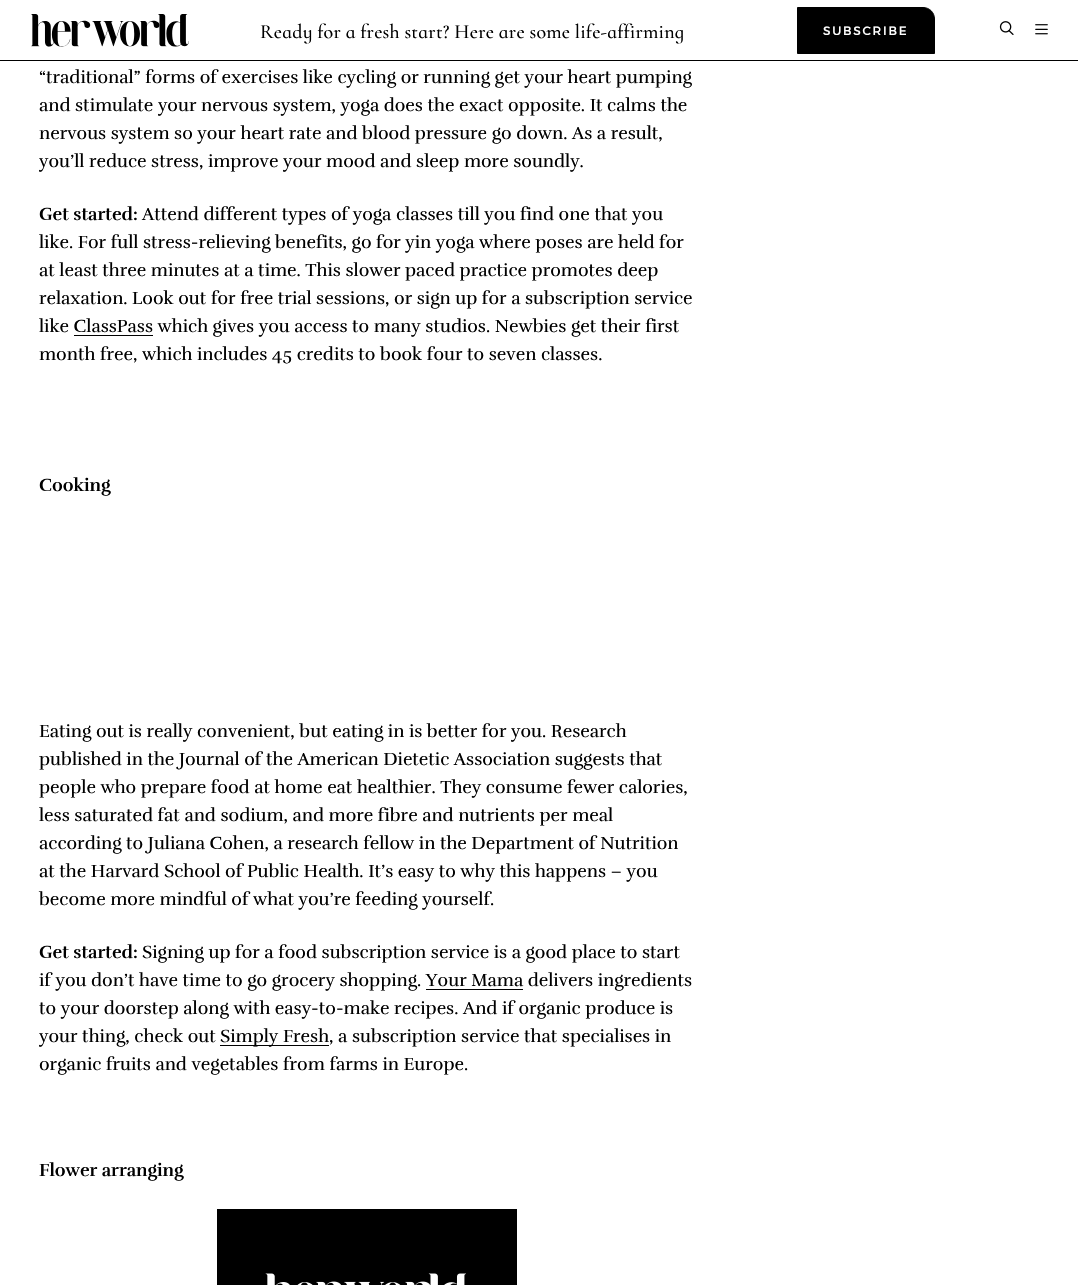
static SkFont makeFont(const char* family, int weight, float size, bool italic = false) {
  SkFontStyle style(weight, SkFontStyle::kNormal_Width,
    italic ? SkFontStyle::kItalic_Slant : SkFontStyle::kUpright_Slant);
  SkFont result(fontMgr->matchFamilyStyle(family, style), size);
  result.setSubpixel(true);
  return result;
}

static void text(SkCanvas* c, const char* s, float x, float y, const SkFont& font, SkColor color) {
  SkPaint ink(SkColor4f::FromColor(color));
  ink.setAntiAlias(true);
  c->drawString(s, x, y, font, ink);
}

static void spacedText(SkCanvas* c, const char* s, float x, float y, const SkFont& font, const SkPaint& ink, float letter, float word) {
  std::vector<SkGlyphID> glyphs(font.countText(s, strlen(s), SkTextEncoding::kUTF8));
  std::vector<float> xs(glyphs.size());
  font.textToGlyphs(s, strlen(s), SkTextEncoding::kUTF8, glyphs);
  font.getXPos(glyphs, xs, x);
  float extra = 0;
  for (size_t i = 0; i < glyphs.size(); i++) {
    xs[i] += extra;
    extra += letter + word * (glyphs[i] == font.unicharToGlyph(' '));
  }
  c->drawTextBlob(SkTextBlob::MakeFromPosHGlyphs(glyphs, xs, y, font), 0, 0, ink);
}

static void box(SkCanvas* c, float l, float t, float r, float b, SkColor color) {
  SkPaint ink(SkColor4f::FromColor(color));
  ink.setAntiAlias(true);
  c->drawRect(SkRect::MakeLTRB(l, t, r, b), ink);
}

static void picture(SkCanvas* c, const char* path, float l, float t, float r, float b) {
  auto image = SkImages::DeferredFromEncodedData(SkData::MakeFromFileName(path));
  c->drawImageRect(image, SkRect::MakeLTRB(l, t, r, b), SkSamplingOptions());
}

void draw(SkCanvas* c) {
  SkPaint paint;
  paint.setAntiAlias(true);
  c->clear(0xffffffff);
  box(c, 0, 60, 1078, 61, 0xff000000);
  picture(c, "img_01.png", 31, 14, 189, 47);
  SkFont face1 = makeFont("Cormorant Infant", 500, 20);
  paint.setColor(0xff000000);
  spacedText(c, "Ready for a fresh start? Here are some life-affirming", 260, 38, face1, paint, 0.2f, -0.25f);
  c->drawPath(SkPathBuilder().moveTo(797.5f, 7.5f).lineTo(923, 7.5f).cubicTo(929.5f, 7.5f, 934.5f, 12.5f, 934.5f, 19).lineTo(934.5f, 53.5f).lineTo(797.5f, 53.5f).close().detach(), paint);
  paint.setStyle(SkPaint::kStroke_Style);
  paint.setStrokeWidth(1);
  c->drawPath(SkPathBuilder().moveTo(797.5f, 7.5f).lineTo(923, 7.5f).cubicTo(929.5f, 7.5f, 934.5f, 12.5f, 934.5f, 19).lineTo(934.5f, 53.5f).lineTo(797.5f, 53.5f).close().detach(), paint);
  SkFont face2 = makeFont("Alexandria", 400, 12);
  paint.setStyle(SkPaint::kFill_Style);
  paint.setColor(0xffffffff);
  spacedText(c, "SUBSCRIBE", 823, 35, face2, paint, 1.75f, 0);
  picture(c, "img_02.png", 999, 21, 1014, 35);
  picture(c, "img_03.png", 1035, 24, 1048, 35);
  SkFont face3 = makeFont("Rufina", 400, 18);
  text(c, "“traditional” forms of exercises like cycling or running get your heart pumping", 39, 83, face3, 0xff000000);
  text(c, "and stimulate your nervous system, yoga does the exact opposite. It calms the", 39, 111, face3, 0xff000000);
  text(c, "nervous system so your heart rate and blood pressure go down. As a result,", 39, 139, face3, 0xff000000);
  text(c, "you’ll reduce stress, improve your mood and sleep more soundly.", 39, 167, face3, 0xff000000);
  SkFont face4 = makeFont("Rufina", 700, 18);
  text(c, "Get started:", 39, 220, face4, 0xff000000);
  text(c, "Attend different types of yoga classes till you find one that you", 142, 220, face3, 0xff000000);
  text(c, "like. For full stress-relieving benefits, go for yin yoga where poses are held for", 39, 248, face3, 0xff000000);
  text(c, "at least three minutes at a time. This slower paced practice promotes deep", 39, 276, face3, 0xff000000);
  text(c, "relaxation. Look out for free trial sessions, or sign up for a subscription service", 39, 304, face3, 0xff000000);
  text(c, "like ClassPass which gives you access to many studios. Newbies get their first", 39, 332, face3, 0xff000000);
  box(c, 74, 335, 153, 336, 0xff000000);
  text(c, "month free, which includes 45 credits to book four to seven classes.", 39, 360, face3, 0xff000000);
  text(c, "Cooking", 39, 491, face4, 0xff000000);
  text(c, "Eating out is really convenient, but eating in is better for you. Research", 39, 737, face3, 0xff000000);
  text(c, "published in the Journal of the American Dietetic Association suggests that", 39, 765, face3, 0xff000000);
  text(c, "people who prepare food at home eat healthier. They consume fewer calories,", 39, 793, face3, 0xff000000);
  text(c, "less saturated fat and sodium, and more fibre and nutrients per meal", 39, 821, face3, 0xff000000);
  text(c, "according to Juliana Cohen, a research fellow in the Department of Nutrition", 39, 849, face3, 0xff000000);
  text(c, "at the Harvard School of Public Health. It’s easy to why this happens – you", 39, 877, face3, 0xff000000);
  text(c, "become more mindful of what you’re feeding yourself.", 39, 905, face3, 0xff000000);
  text(c, "Get started:", 39, 958, face4, 0xff000000);
  text(c, "Signing up for a food subscription service is a good place to start", 142, 958, face3, 0xff000000);
  text(c, "if you don’t have time to go grocery shopping. Your Mama delivers ingredients", 39, 986, face3, 0xff000000);
  box(c, 426, 989, 523, 990, 0xff000000);
  text(c, "to your doorstep along with easy-to-make recipes. And if organic produce is", 39, 1014, face3, 0xff000000);
  text(c, "your thing, check out", 39, 1042, face3, 0xff000000);
  box(c, 220, 1045, 329, 1046, 0xff000000);
  text(c, "Simply Fresh, a subscription service that specialises in", 220, 1042, face3, 0xff000000);
  text(c, "organic fruits and vegetables from farms in Europe.", 39, 1070, face3, 0xff000000);
  text(c, "Flower arranging", 39, 1176, face4, 0xff000000);
  box(c, 217, 1209, 517, 1285, 0xff000000);
  picture(c, "img_04.png", 265, 1273, 466, 1285);
}
